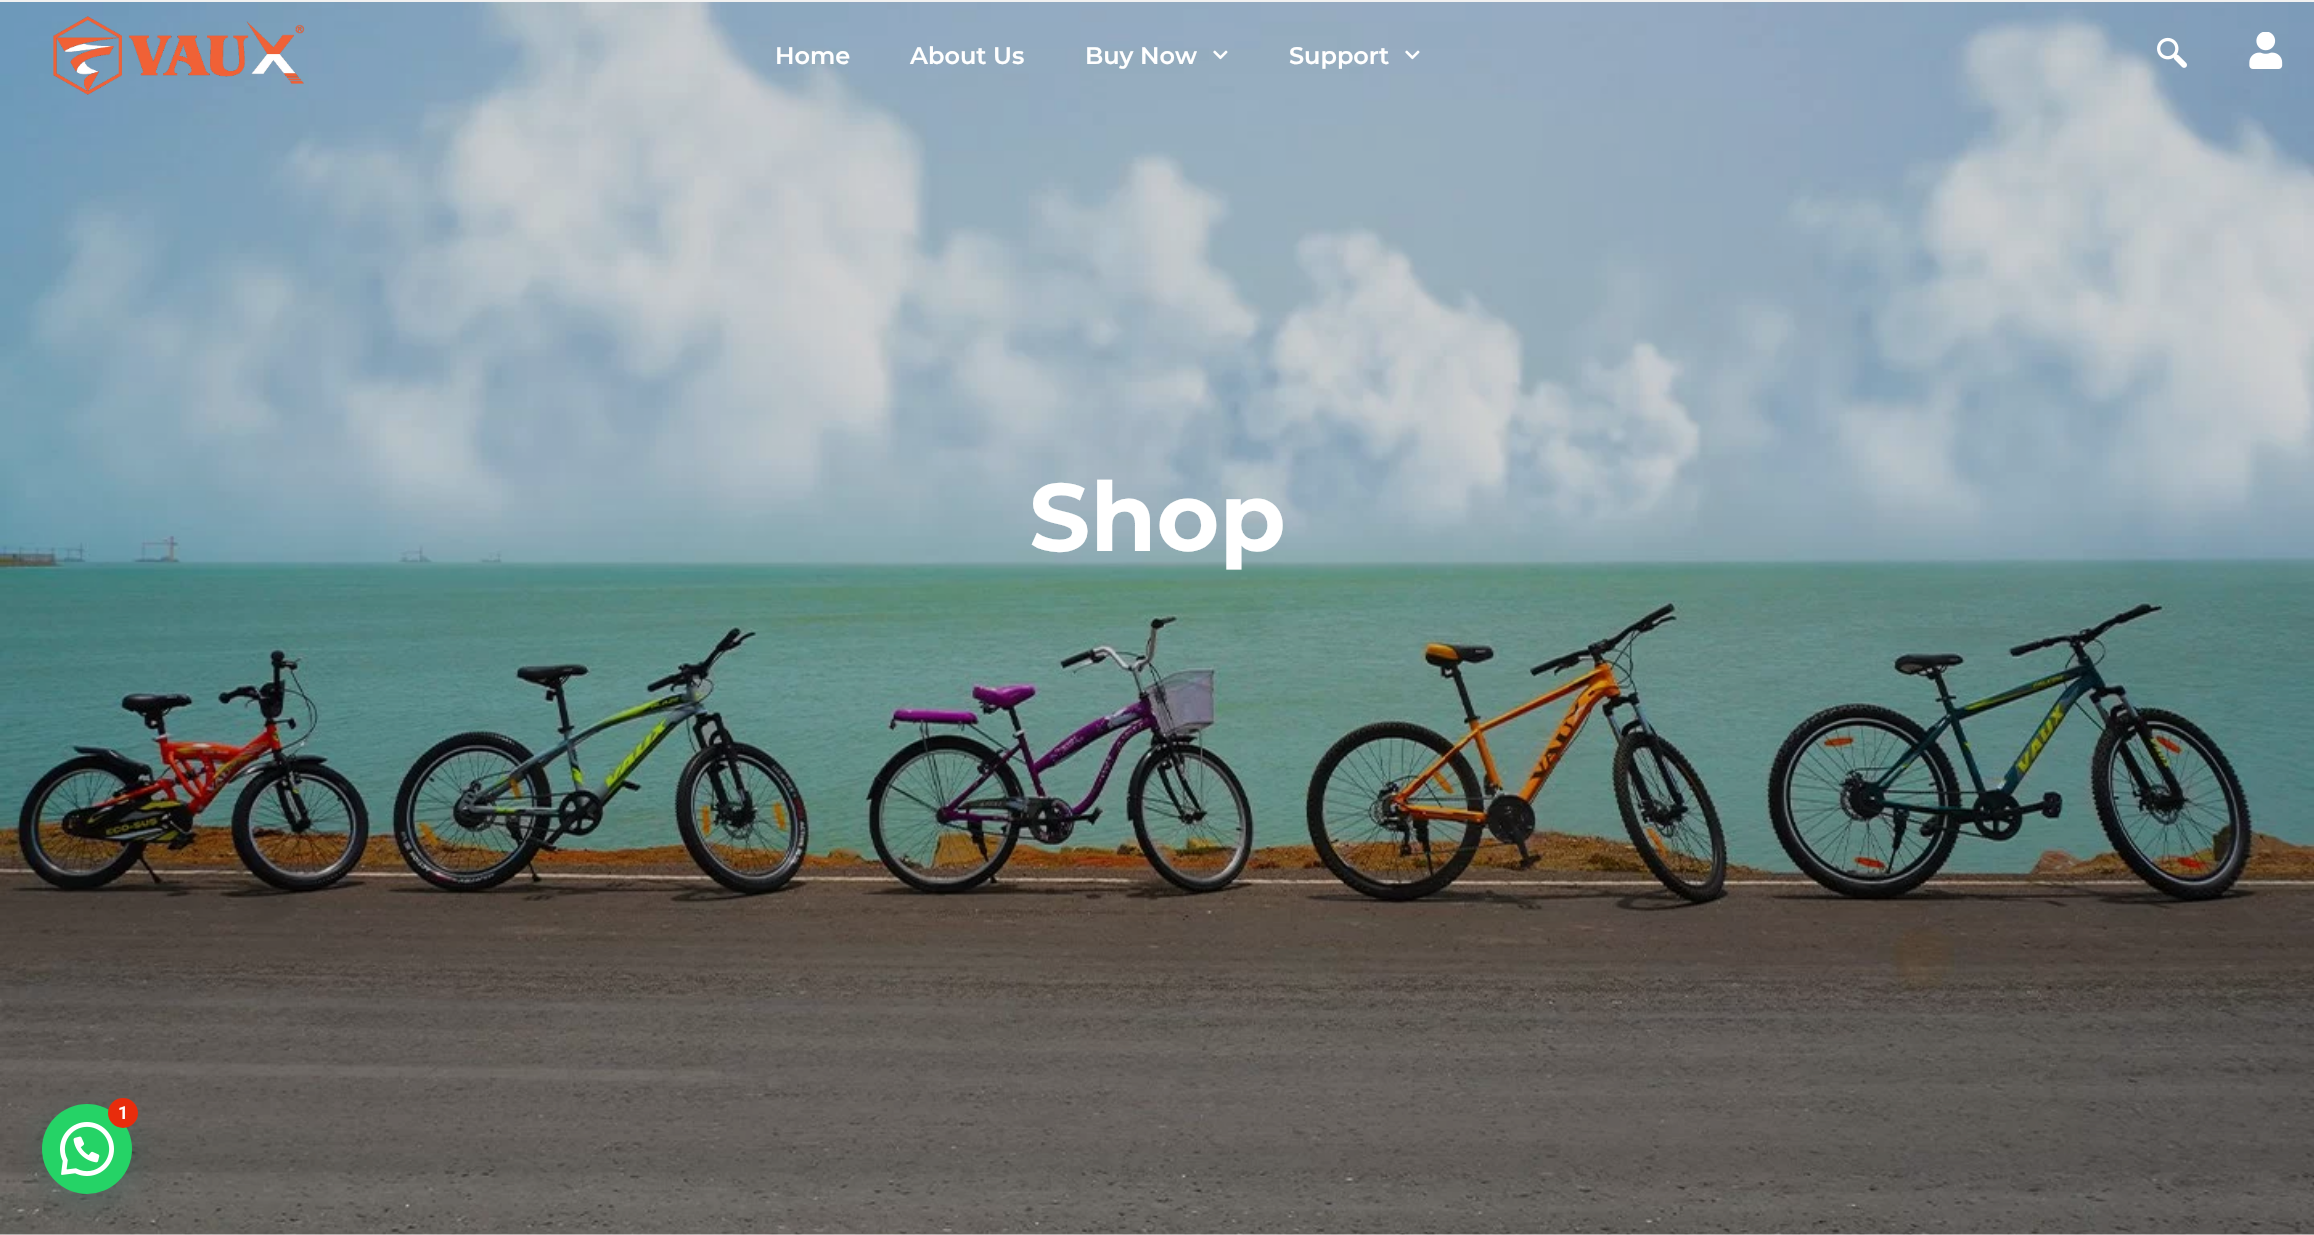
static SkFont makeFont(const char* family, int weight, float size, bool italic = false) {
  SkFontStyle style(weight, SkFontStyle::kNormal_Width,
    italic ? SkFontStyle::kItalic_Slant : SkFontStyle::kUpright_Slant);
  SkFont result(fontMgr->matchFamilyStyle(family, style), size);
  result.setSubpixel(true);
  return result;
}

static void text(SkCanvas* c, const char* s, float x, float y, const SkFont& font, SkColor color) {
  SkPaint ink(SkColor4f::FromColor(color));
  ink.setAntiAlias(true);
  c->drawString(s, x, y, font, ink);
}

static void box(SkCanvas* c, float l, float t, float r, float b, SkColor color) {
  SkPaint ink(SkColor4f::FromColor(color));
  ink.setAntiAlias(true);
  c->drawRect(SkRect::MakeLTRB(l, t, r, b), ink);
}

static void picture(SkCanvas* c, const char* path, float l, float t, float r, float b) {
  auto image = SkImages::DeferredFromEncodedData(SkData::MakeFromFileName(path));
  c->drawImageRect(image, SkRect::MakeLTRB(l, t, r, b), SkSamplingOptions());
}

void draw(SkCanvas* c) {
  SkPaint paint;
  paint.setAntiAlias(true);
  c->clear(0xffffffff);
  box(c, 0, 0, 2314, 2, 0xfff1f1f1);
  picture(c, "img_06.png", 0, 2, 2314, 1235);
  picture(c, "img_01.png", 53, 16, 305, 95);
  SkFont face1 = makeFont("Montserrat", 600, 24);
  text(c, "Home", 775, 64, face1, 0xffffffff);
  text(c, "About Us", 910, 64, face1, 0xffffffff);
  text(c, "Buy Now", 1085, 64, face1, 0xffffffff);
  picture(c, "img_02.png", 1213, 50, 1228, 60);
  text(c, "Support", 1289, 64, face1, 0xffffffff);
  picture(c, "img_03.png", 1405, 50, 1420, 60);
  picture(c, "img_04.png", 2157, 37, 2187, 68);
  picture(c, "img_05.png", 2249, 32, 2283, 69);
  SkFont face2 = makeFont("Montserrat", 700, 96);
  text(c, "Shop", 1029, 551, face2, 0xffffffff);
  paint.setColor(0x3d075e54);
  paint.setMaskFilter(SkMaskFilter::MakeBlur(kNormal_SkBlurStyle, 18));
  c->drawRoundRect(SkRect::MakeLTRB(44, 1113, 134, 1203), 45, 45, paint);
  paint.setMaskFilter(nullptr);
  paint.setColor(0xff25d366);
  c->drawCircle(87, 1149, 45, paint);
  picture(c, "img_07.png", 60, 1122, 114, 1176);
  paint.setColor(0xffe82c0c);
  c->drawCircle(123, 1113, 15, paint);
  SkFont face3 = makeFont("Roboto", 600, 18);
  text(c, "1", 118, 1119, face3, 0xffffffff);
}
